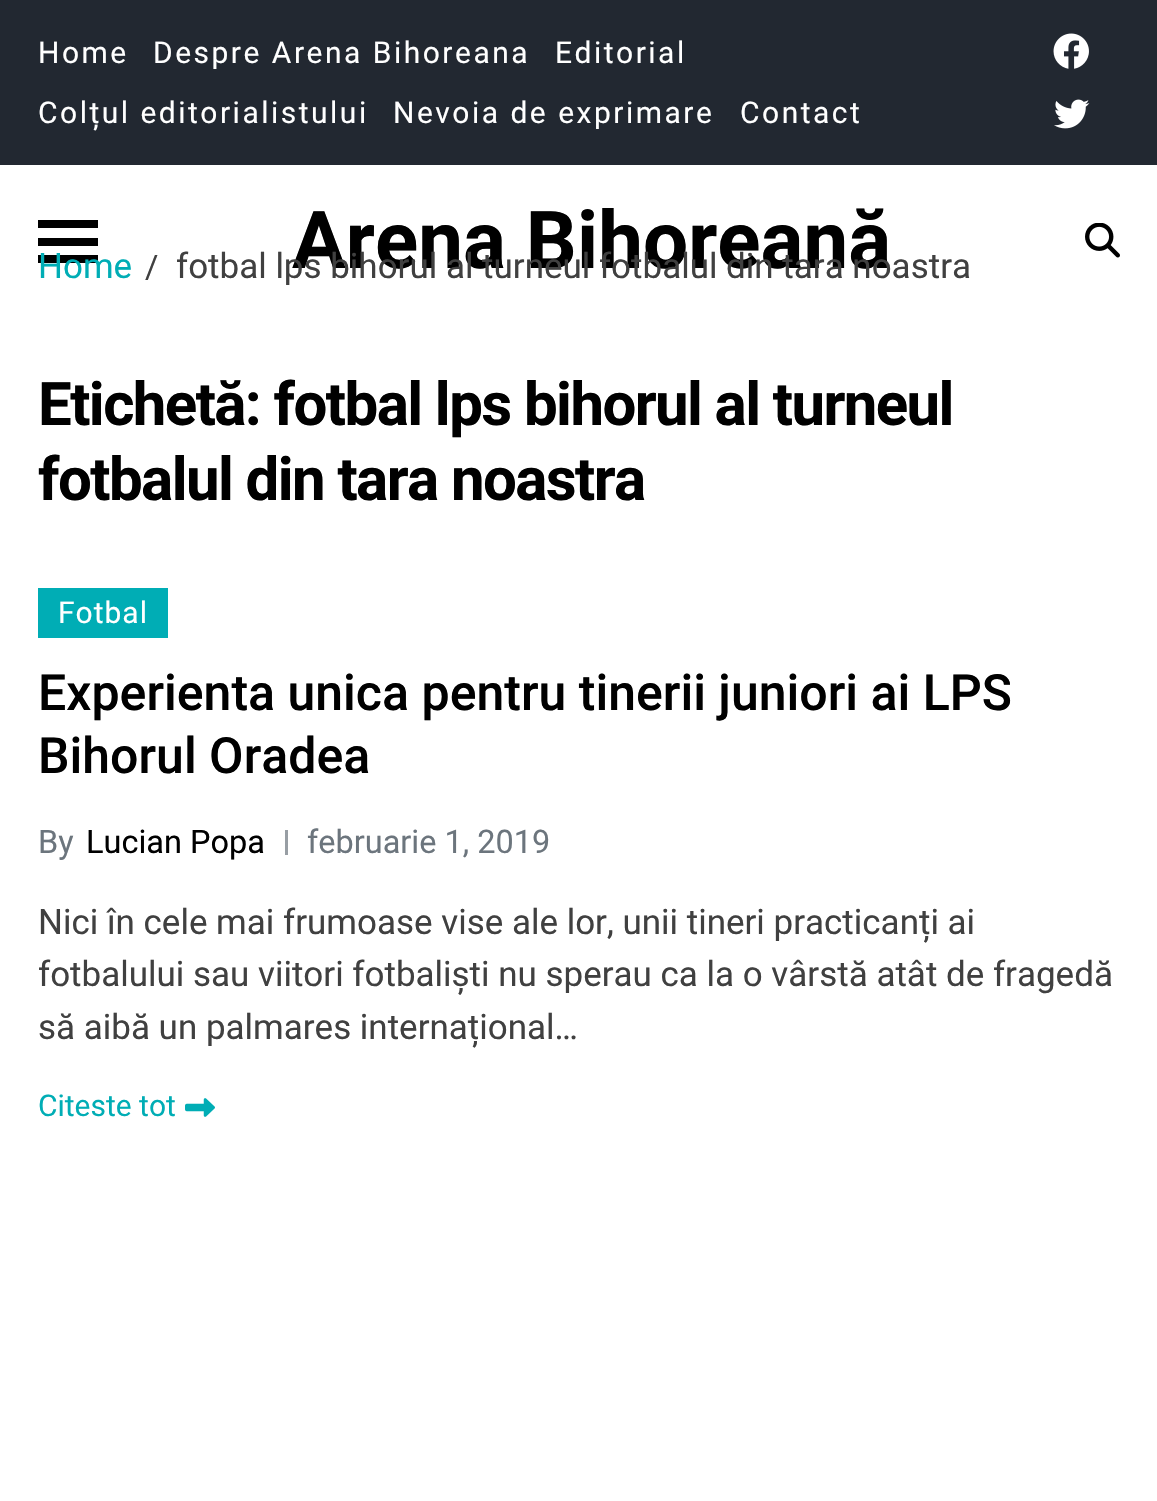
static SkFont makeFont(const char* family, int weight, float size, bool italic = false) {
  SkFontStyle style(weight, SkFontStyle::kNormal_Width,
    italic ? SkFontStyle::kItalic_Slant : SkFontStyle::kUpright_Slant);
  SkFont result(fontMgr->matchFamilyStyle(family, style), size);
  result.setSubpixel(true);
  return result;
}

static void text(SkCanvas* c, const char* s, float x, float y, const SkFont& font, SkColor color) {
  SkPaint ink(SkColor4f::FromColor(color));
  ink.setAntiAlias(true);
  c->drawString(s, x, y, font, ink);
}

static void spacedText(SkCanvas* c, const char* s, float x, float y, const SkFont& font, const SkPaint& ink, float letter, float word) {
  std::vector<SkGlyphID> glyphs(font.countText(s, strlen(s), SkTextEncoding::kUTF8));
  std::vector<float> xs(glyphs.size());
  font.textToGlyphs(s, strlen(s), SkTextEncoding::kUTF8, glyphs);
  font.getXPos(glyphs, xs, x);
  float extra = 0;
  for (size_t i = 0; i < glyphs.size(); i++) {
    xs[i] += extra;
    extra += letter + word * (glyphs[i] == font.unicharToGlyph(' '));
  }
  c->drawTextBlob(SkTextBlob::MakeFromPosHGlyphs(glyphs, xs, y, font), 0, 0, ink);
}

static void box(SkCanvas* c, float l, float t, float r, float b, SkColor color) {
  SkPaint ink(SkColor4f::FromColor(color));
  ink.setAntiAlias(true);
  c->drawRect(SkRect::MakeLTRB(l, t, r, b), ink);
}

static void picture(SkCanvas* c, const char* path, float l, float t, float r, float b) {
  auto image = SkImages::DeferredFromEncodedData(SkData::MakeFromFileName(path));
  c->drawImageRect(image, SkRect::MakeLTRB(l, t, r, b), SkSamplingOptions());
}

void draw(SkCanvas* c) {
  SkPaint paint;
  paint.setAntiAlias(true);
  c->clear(0xffffffff);
  box(c, 0, 0, 1157, 165, 0xff222831);
  SkFont face1 = makeFont("Roboto", 400, 30);
  paint.setColor(0xffffffff);
  spacedText(c, "Home", 38, 63, face1, paint, 2.5f, 0);
  spacedText(c, "Despre Arena Bihoreana", 153, 63, face1, paint, 2.5f, 0);
  spacedText(c, "Editorial", 555, 63, face1, paint, 2.5f, 0);
  spacedText(c, "Colțul editorialistului", 38, 123, face1, paint, 2.5f, 0);
  spacedText(c, "Nevoia de exprimare", 393, 123, face1, paint, 2.5f, 0);
  spacedText(c, "Contact", 740, 123, face1, paint, 2.5f, 0);
  picture(c, "img_01.png", 1053, 33, 1089, 69);
  picture(c, "img_02.png", 1054, 99, 1090, 129);
  box(c, 38, 220, 98, 228, 0xff000000);
  box(c, 38, 238, 98, 246, 0xff000000);
  box(c, 38, 255, 98, 263, 0xff000000);
  SkFont face2 = makeFont("Roboto", 700, 80);
  text(c, "Arena Bihoreană", 292, 268, face2, 0xff000000);
  picture(c, "img_03.png", 1085, 223, 1120, 258);
  SkFont face3 = makeFont("Roboto", 400, 35);
  text(c, "Home", 38, 278, face3, 0xff00adb5);
  SkFont face4 = makeFont("Roboto", 400, 32.5f);
  text(c, "/", 145, 278, face4, 0xff404040);
  text(c, "fotbal lps bihorul al turneul fotbalul din tara noastra", 176, 278, face3, 0xff404040);
  SkFont face5 = makeFont("Roboto", 700, 60);
  paint.setColor(0xff000000);
  spacedText(c, "Etichetă: fotbal lps bihorul al turneul", 38, 425, face5, paint, -1.6f, 0);
  spacedText(c, "fotbalul din tara noastra", 38, 500, face5, paint, -1.6f, 0);
  box(c, 38, 588, 168, 638, 0xff00adb5);
  paint.setColor(0xffffffff);
  spacedText(c, "Fotbal", 58, 623, face1, paint, 1, 0);
  SkFont face6 = makeFont("Roboto", 500, 50);
  text(c, "Experienta unica pentru tinerii juniori ai LPS", 38, 710, face6, 0xff000000);
  text(c, "Bihorul Oradea", 38, 773, face6, 0xff000000);
  text(c, "By", 38, 853, face4, 0xff6c757d);
  text(c, "Lucian Popa", 86, 853, face4, 0xff000000);
  box(c, 285, 830, 288, 855, 0xff989ea4);
  text(c, "februarie 1, 2019", 307, 853, face4, 0xff6c757d);
  text(c, "Nici în cele mai frumoase vise ale lor, unii tineri practicanți ai", 38, 934, face3, 0xff404040);
  text(c, "fotbalului sau viitori fotbaliști nu sperau ca la o vârstă atât de fragedă", 38, 986, face3, 0xff404040);
  text(c, "să aibă un palmares internațional…", 38, 1039, face3, 0xff404040);
  text(c, "Citeste tot", 38, 1116, face1, 0xff00adb5);
  picture(c, "img_04.png", 185, 1098, 215, 1117);
}
